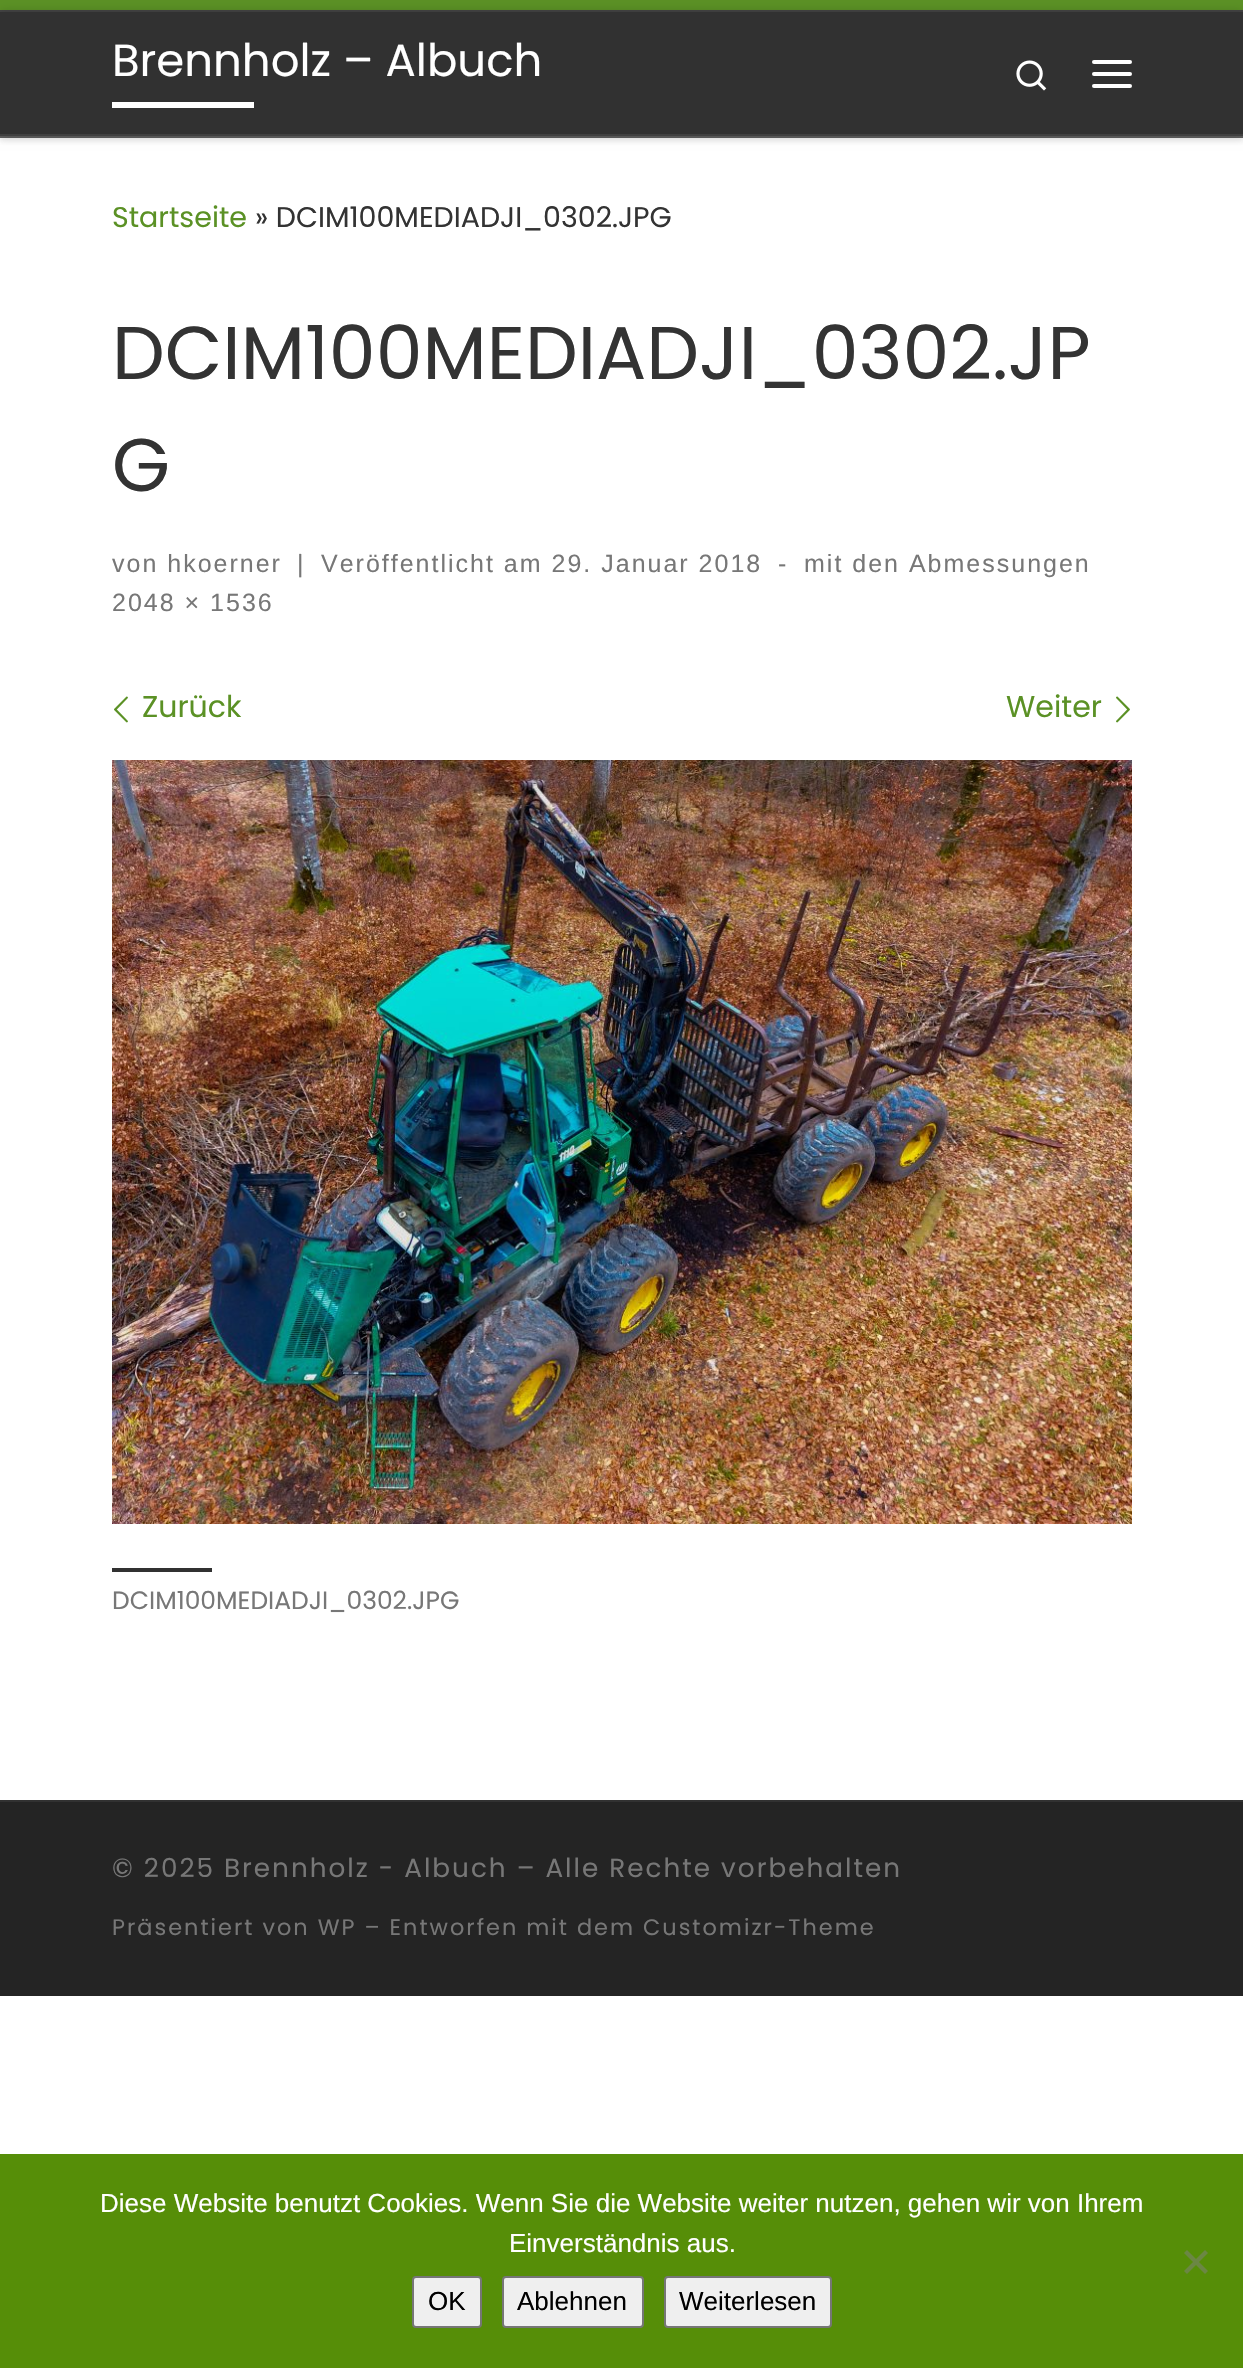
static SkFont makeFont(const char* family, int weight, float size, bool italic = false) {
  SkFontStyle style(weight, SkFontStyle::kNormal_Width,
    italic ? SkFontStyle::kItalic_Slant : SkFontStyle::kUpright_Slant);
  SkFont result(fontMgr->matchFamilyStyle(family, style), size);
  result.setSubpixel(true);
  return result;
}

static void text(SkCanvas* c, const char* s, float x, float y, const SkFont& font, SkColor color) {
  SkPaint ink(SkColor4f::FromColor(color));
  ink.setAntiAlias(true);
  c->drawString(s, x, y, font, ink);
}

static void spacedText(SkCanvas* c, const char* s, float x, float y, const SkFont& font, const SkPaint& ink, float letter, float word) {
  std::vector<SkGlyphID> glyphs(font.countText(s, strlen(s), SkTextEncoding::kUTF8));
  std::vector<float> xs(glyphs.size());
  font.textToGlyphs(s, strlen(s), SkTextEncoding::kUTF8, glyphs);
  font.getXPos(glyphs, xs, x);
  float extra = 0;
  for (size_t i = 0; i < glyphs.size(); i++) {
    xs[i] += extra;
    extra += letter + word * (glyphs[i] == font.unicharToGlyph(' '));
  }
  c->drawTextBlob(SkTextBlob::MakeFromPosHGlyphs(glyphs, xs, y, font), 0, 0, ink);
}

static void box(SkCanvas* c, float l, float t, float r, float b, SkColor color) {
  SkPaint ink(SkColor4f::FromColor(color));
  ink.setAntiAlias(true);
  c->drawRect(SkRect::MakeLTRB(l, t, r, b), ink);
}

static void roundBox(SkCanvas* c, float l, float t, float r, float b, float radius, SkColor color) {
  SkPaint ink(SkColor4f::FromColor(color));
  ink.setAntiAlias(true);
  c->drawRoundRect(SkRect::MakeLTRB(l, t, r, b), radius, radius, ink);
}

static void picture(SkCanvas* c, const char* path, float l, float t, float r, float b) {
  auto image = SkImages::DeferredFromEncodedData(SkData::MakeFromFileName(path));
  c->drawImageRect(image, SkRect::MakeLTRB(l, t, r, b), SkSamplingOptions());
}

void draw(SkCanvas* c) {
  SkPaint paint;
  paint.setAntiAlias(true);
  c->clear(0xffffffff);
  paint.setColor(0x14666666);
  paint.setMaskFilter(SkMaskFilter::MakeBlur(kNormal_SkBlurStyle, 2));
  c->drawRect(SkRect::MakeLTRB(0, 4, 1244, 142), paint);
  paint.setMaskFilter(nullptr);
  box(c, 0, 12, 1243, 134, 0xff313131);
  box(c, 0, 0, 1243, 10, 0xff5b9125);
  box(c, 0, 10, 1243, 12, 0xff444444);
  box(c, 0, 136, 1243, 138, 0xff606060);
  c->save();
  c->clipPath(SkPathBuilder(SkPathFillType::kEvenOdd).moveTo(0, 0).lineTo(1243, 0).lineTo(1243, 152).lineTo(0, 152).close().moveTo(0, 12).lineTo(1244, 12).lineTo(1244, 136).lineTo(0, 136).close().detach(), true);
  paint.setColor(0x33000000);
  paint.setMaskFilter(SkMaskFilter::MakeBlur(kNormal_SkBlurStyle, 5));
  c->drawRect(SkRect::MakeLTRB(0, 12, 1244, 136), paint);
  paint.setMaskFilter(nullptr);
  c->restore();
  SkFont face1 = makeFont("Poppins", 400, 45);
  text(c, "Brennholz – Albuch", 112, 76, face1, 0xffffffff);
  box(c, 112, 102, 254, 108, 0xffffffff);
  picture(c, "img_01.png", 1016, 60, 1047, 91);
  roundBox(c, 1092, 60, 1132, 64, 2, 0xffffffff);
  roundBox(c, 1092, 72, 1132, 76, 2, 0xffffffff);
  roundBox(c, 1092, 84, 1132, 88, 2, 0xffffffff);
  box(c, 0, 134, 1243, 136, 0xff404040);
  SkFont face2 = makeFont("Poppins", 400, 28.5f);
  text(c, "Startseite", 112, 227, face2, 0xff5b9125);
  text(c, "» DCIM100MEDIADJI_0302.JPG", 255, 227, face2, 0xff333333);
  SkFont face3 = makeFont("Poppins", 400, 74.6f);
  text(c, "DCIM100MEDIADJI_0302.JP", 112, 379, face3, 0xff333333);
  text(c, "G", 112, 491, face3, 0xff333333);
  SkFont face4 = makeFont("Liberation Sans", 400, 25);
  paint.setColor(0xff777777);
  spacedText(c, "von hkoerner", 112, 572, face4, paint, 2, 0);
  spacedText(c, "|", 297, 572, face4, paint, 2, 0);
  spacedText(c, "Veröffentlicht am 29. Januar 2018", 321, 572, face4, paint, 2, 0);
  spacedText(c, "-", 778, 572, face4, paint, 2, 0);
  spacedText(c, "mit den Abmessungen", 804, 572, face4, paint, 2, 0);
  spacedText(c, "2048 × 1536", 112, 611, face4, paint, 2, 0);
  picture(c, "img_02.png", 114, 696, 128, 723);
  SkFont face5 = makeFont("Poppins", 400, 30);
  text(c, "Zurück", 142, 717, face5, 0xff5b9125);
  text(c, "Weiter", 1006, 717, face5, 0xff5b9125);
  picture(c, "img_03.png", 1116, 696, 1130, 723);
  picture(c, "img_04.png", 112, 760, 1132, 1524);
  box(c, 112, 1568, 212, 1572, 0xff313131);
  SkFont face6 = makeFont("Poppins", 400, 25);
  text(c, "DCIM100MEDIADJI_0302.JPG", 112, 1609, face6, 0xff777777);
  box(c, 0, 1800, 1243, 1802, 0xff313131);
  box(c, 0, 1802, 1243, 1996, 0xff242424);
  SkFont face7 = makeFont("Poppins", 400, 26.25f);
  spacedText(c, "© 2025 Brennholz - Albuch – Alle Rechte vorbehalten", 112, 1877, face7, paint, 2, 0);
  SkFont face8 = makeFont("Poppins", 400, 22.4f);
  spacedText(c, "Präsentiert von WP – Entworfen mit dem Customizr-Theme", 112, 1935, face8, paint, 2, 0);
  box(c, 0, 2154, 1243, 2368, 0xff568e08);
  SkFont face9 = makeFont("Liberation Sans", 400, 26);
  text(c, "Diese Website benutzt Cookies. Wenn Sie die Website weiter nutzen, gehen wir von Ihrem", 100, 2212, face9, 0xffffffff);
  text(c, "Einverständnis aus.", 509, 2252, face9, 0xffffffff);
  paint.setColor(0xff6b8744);
  c->drawPath(SkPathBuilder().moveTo(1205, 2250).lineTo(1208, 2253).lineTo(1187, 2274).lineTo(1184, 2271).close().detach(), paint);
  c->drawPath(SkPathBuilder().moveTo(1184, 2253).lineTo(1187, 2250).lineTo(1208, 2271).lineTo(1205, 2274).close().detach(), paint);
  paint.setColor(0xffefefef);
  c->drawRoundRect(SkRect::MakeLTRB(413, 2277, 481, 2327), 3, 3, paint);
  paint.setStyle(SkPaint::kStroke_Style);
  paint.setStrokeWidth(2);
  paint.setColor(0xff767676);
  c->drawRoundRect(SkRect::MakeLTRB(413, 2277, 481, 2327), 3, 3, paint);
  text(c, "OK", 428, 2310, face9, 0xff000000);
  paint.setStyle(SkPaint::kFill_Style);
  paint.setColor(0xffefefef);
  c->drawRoundRect(SkRect::MakeLTRB(503, 2277, 643, 2327), 3, 3, paint);
  paint.setStyle(SkPaint::kStroke_Style);
  paint.setColor(0xff767676);
  c->drawRoundRect(SkRect::MakeLTRB(503, 2277, 643, 2327), 3, 3, paint);
  text(c, "Ablehnen", 517, 2310, face9, 0xff000000);
  paint.setStyle(SkPaint::kFill_Style);
  paint.setColor(0xffefefef);
  c->drawRoundRect(SkRect::MakeLTRB(665, 2277, 831, 2327), 3, 3, paint);
  paint.setStyle(SkPaint::kStroke_Style);
  paint.setColor(0xff767676);
  c->drawRoundRect(SkRect::MakeLTRB(665, 2277, 831, 2327), 3, 3, paint);
  text(c, "Weiterlesen", 679, 2310, face9, 0xff000000);
}
